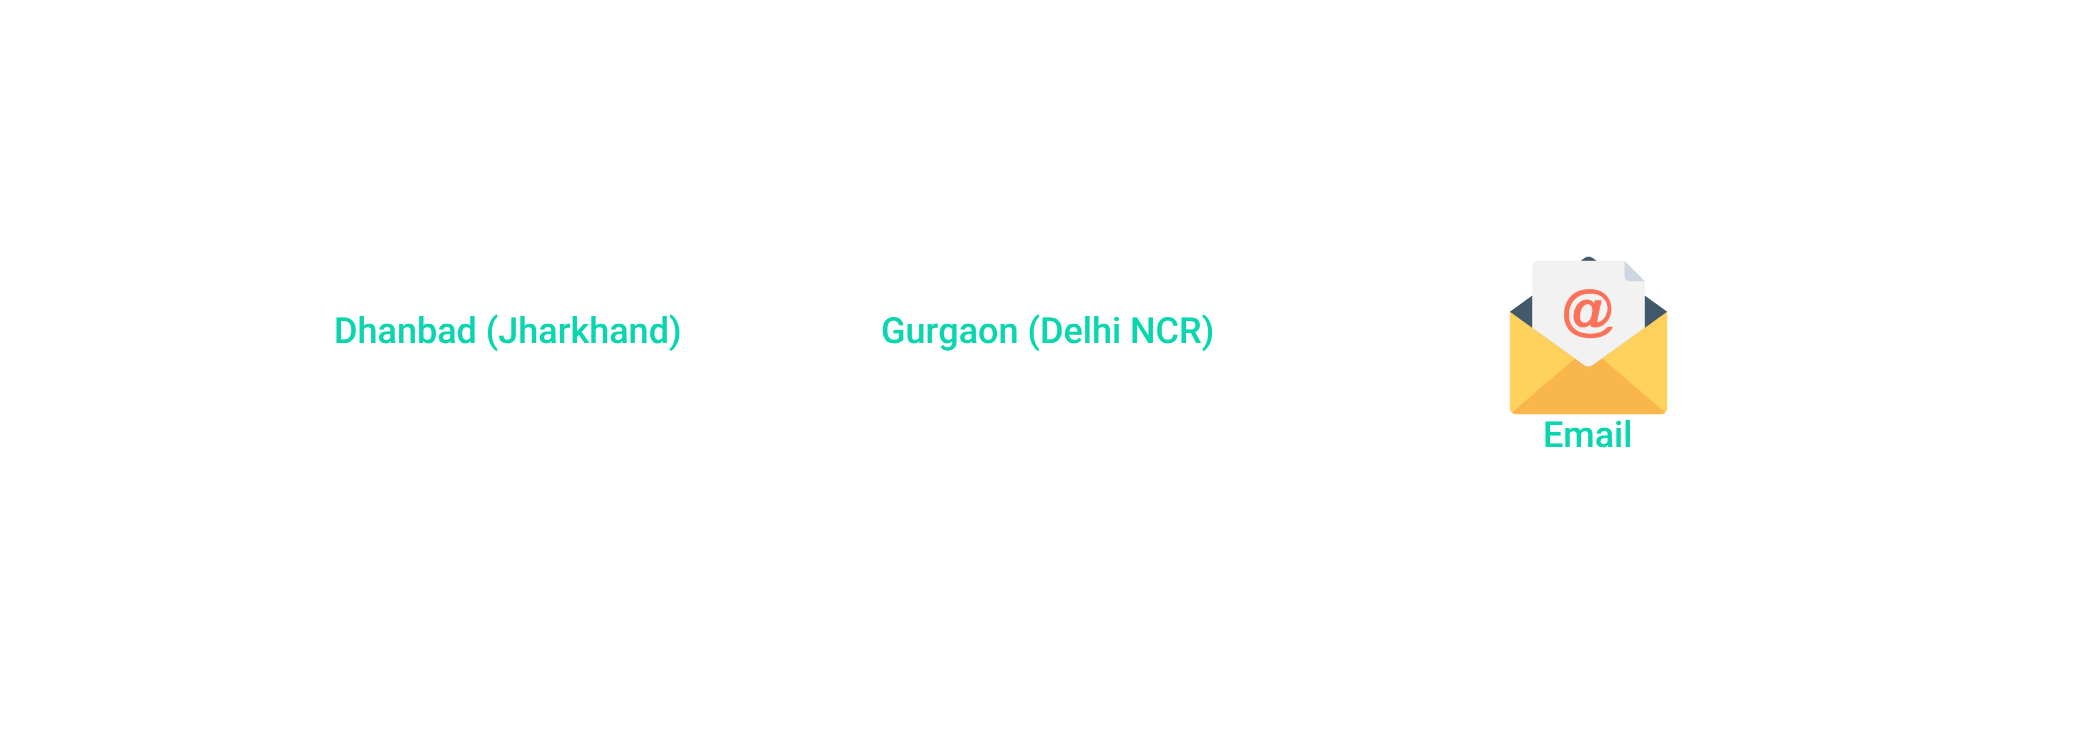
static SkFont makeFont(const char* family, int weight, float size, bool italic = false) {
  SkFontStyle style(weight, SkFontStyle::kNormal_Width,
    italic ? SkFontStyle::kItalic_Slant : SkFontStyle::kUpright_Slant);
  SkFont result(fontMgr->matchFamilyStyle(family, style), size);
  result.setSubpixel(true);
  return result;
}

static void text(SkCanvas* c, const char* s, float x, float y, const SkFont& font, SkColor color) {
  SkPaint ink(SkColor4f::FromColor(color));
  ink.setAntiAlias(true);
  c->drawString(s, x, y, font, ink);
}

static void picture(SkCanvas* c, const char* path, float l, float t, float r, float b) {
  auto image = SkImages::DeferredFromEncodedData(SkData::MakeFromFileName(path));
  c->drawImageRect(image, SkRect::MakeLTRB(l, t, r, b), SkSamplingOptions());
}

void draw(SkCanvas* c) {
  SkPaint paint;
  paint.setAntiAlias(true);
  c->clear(0xffffffff);
  SkFont face1 = makeFont("Roboto", 500, 36);
  text(c, "Dhanbad (Jharkhand)", 334, 343, face1, 0xff09d6af);
  text(c, "Gurgaon (Delhi NCR)", 881, 343, face1, 0xff09d6af);
  picture(c, "img_01.png", 1509, 256, 1668, 415);
  text(c, "Email", 1543, 447, face1, 0xff09d6af);
}
